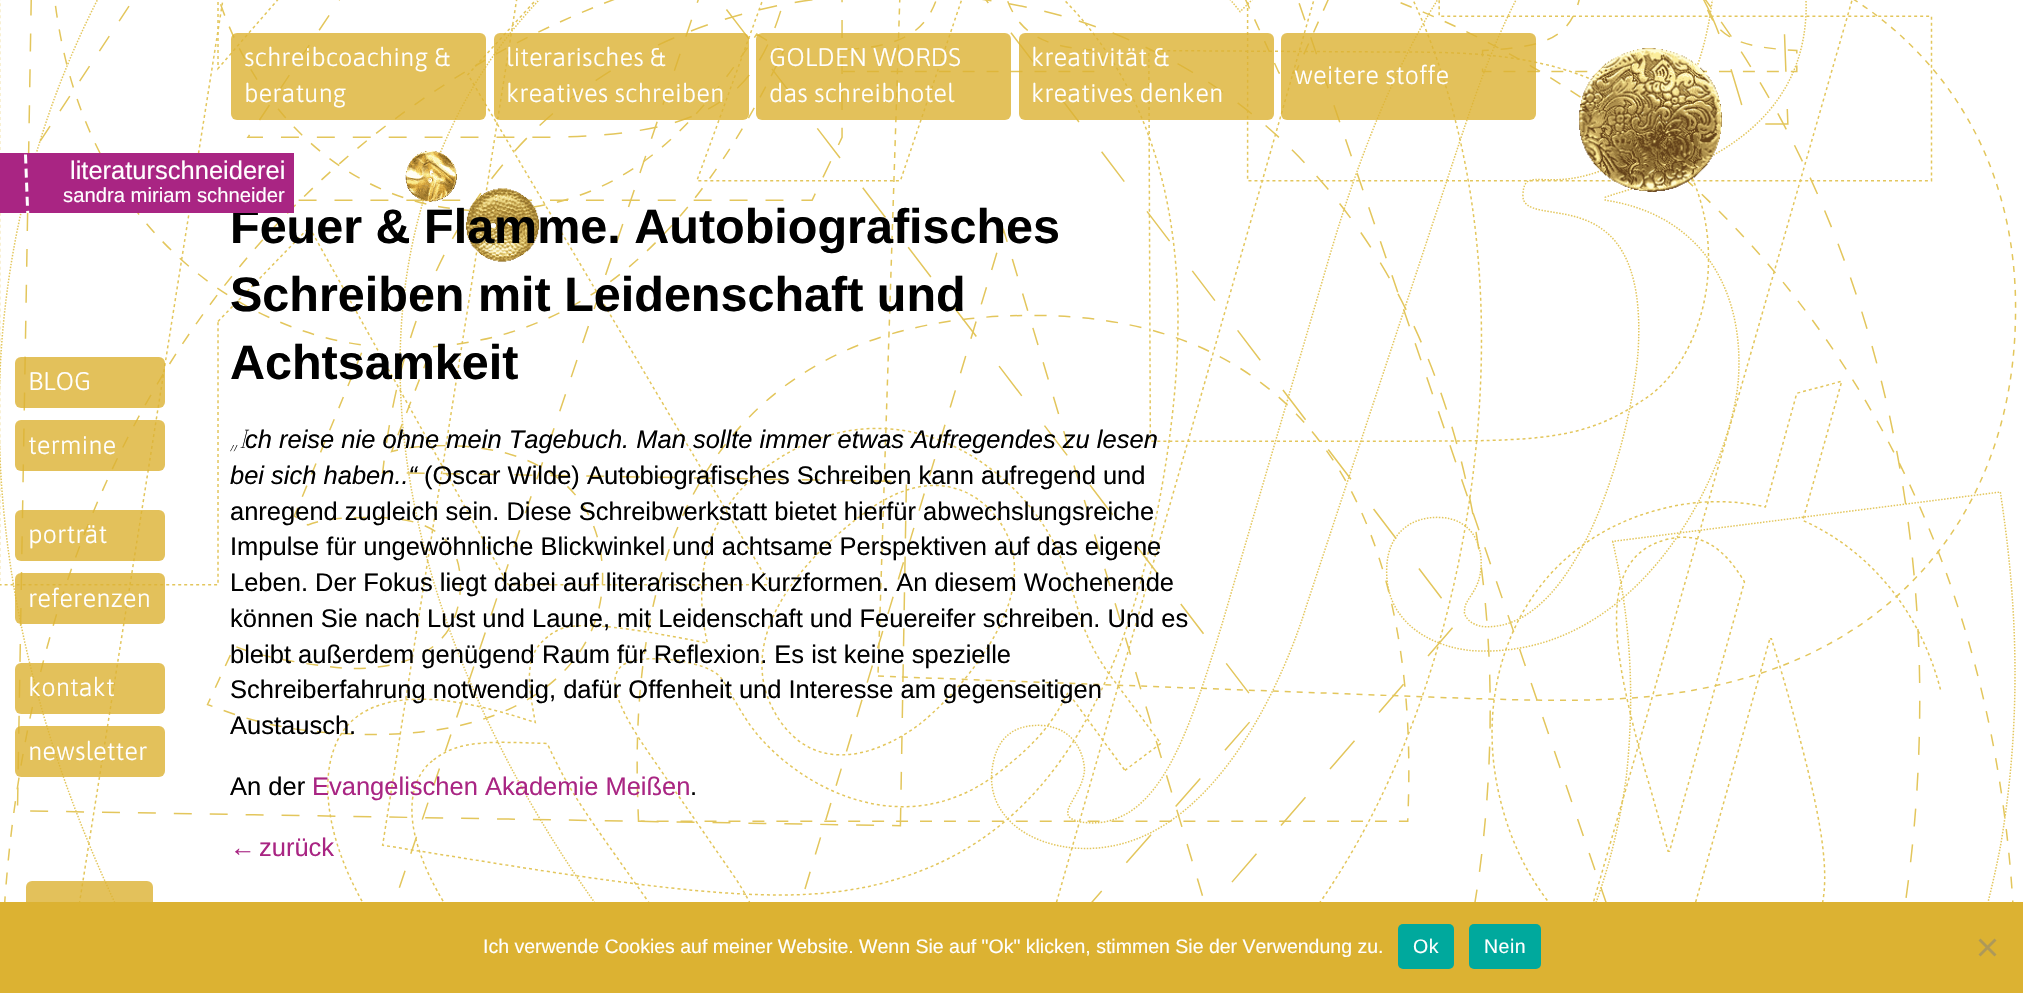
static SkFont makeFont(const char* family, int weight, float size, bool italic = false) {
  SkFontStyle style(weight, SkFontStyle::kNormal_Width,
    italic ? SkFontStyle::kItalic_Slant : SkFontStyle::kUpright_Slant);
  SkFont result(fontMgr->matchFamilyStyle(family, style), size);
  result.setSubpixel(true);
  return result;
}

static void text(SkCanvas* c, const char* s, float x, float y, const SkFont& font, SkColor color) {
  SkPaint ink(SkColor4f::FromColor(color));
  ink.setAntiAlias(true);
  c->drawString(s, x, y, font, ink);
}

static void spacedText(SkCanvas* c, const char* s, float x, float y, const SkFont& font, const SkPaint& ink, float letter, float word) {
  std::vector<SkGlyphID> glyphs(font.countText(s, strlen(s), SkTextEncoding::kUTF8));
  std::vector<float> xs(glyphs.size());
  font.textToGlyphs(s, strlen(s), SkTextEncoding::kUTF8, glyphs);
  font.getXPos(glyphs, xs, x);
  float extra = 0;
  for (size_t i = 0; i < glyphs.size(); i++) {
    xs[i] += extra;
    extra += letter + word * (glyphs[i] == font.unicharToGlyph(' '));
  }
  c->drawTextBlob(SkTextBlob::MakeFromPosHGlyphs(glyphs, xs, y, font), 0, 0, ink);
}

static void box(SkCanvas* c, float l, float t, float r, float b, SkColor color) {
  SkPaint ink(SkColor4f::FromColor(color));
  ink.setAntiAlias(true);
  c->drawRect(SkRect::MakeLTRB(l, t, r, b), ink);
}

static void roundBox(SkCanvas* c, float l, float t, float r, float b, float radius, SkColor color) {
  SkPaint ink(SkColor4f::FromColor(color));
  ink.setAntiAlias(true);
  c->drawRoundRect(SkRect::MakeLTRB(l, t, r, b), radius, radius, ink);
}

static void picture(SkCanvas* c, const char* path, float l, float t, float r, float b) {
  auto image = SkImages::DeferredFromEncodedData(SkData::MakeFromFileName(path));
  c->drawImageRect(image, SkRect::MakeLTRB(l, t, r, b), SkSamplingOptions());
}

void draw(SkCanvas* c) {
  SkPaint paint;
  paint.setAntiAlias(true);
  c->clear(0xffffffff);
  picture(c, "img_01.png", 0, 0, 2017, 902);
  box(c, 0, 0, 1536, 204, 0xffffffff);
  picture(c, "img_02.png", 0, 0, 1536, 204);
  roundBox(c, 231, 33, 486, 120, 6, 0xccdcb232);
  SkFont face1 = makeFont("Asap", 300, 25.5f);
  text(c, "schreibcoaching &", 244, 66, face1, 0xffffffff);
  text(c, "beratung", 244, 102, face1, 0xffffffff);
  roundBox(c, 494, 33, 749, 120, 6, 0xccdcb232);
  text(c, "literarisches &", 506, 66, face1, 0xffffffff);
  text(c, "kreatives schreiben", 506, 102, face1, 0xffffffff);
  roundBox(c, 756, 33, 1011, 120, 6, 0xccdcb232);
  text(c, "GOLDEN WORDS", 769, 66, face1, 0xffffffff);
  text(c, "das schreibhotel", 769, 102, face1, 0xffffffff);
  roundBox(c, 1019, 33, 1274, 120, 6, 0xccdcb232);
  text(c, "kreativität &", 1031, 66, face1, 0xffffffff);
  text(c, "kreatives denken", 1031, 102, face1, 0xffffffff);
  roundBox(c, 1281, 33, 1536, 120, 6, 0xccdcb232);
  text(c, "weitere stoffe", 1294, 84, face1, 0xffffffff);
  SkFont face2 = makeFont("Liberation Sans", 700, 48.5f);
  text(c, "Feuer & Flamme. Autobiografisches", 230, 243, face2, 0xff000000);
  box(c, 0, 153, 294, 213, 0xffa92583);
  c->save();
  c->clipRect(SkRect::MakeLTRB(0, 153, 294, 213));
  paint.setStyle(SkPaint::kStroke_Style);
  paint.setStrokeWidth(3);
  paint.setColor(0xffffffff);
  paint.setPathEffect(SkDashPathEffect::Make({{9, 5.1f}}, 0));
  c->drawPath(SkPathBuilder().moveTo(25.5f, 154.5f).lineTo(28.5f, 234).detach(), paint);
  paint.setPathEffect(nullptr);
  c->restore();
  SkFont face3 = makeFont("Liberation Sans", 400, 25.5f);
  text(c, "literaturschneiderei", 70, 179, face3, 0xffffffff);
  SkFont face4 = makeFont("Liberation Sans", 400, 20.25f);
  text(c, "sandra miriam schneider", 63, 202, face4, 0xffffffff);
  roundBox(c, 15, 357, 165, 408, 6, 0xccdcb232);
  text(c, "BLOG", 28, 390, face1, 0xffffffff);
  roundBox(c, 15, 420, 165, 471, 6, 0xccdcb232);
  text(c, "termine", 28, 454, face1, 0xffffffff);
  roundBox(c, 15, 510, 165, 561, 6, 0xccdcb232);
  text(c, "porträt", 28, 543, face1, 0xffffffff);
  roundBox(c, 15, 573, 165, 624, 6, 0xccdcb232);
  text(c, "referenzen", 28, 607, face1, 0xffffffff);
  roundBox(c, 15, 663, 165, 714, 6, 0xccdcb232);
  text(c, "kontakt", 28, 696, face1, 0xffffffff);
  roundBox(c, 15, 726, 165, 777, 6, 0xccdcb232);
  text(c, "newsletter", 28, 760, face1, 0xffffffff);
  text(c, "Schreiben mit Leidenschaft und", 230, 311, face2, 0xff000000);
  text(c, "Achtsamkeit", 230, 379, face2, 0xff000000);
  SkFont face5 = makeFont("Noto Sans", 100, 25.5f, true);
  text(c, "„I", 230, 448, face5, 0xff000000);
  SkFont face6 = makeFont("Liberation Sans", 400, 25.5f, true);
  text(c, "ch reise nie ohne mein Tagebuch. Man sollte immer etwas Aufregendes zu lesen", 245, 448, face6, 0xff000000);
  text(c, "bei sich haben..“", 230, 484, face6, 0xff000000);
  text(c, "(Oscar Wilde) Autobiografisches Schreiben kann aufregend und", 424, 484, face3, 0xff000000);
  text(c, "anregend zugleich sein. Diese Schreibwerkstatt bietet hierfür abwechslungsreiche", 230, 520, face3, 0xff000000);
  text(c, "Impulse für ungewöhnliche Blickwinkel und achtsame Perspektiven auf das eigene", 230, 555, face3, 0xff000000);
  text(c, "Leben. Der Fokus liegt dabei auf literarischen Kurzformen. An diesem Wochenende", 230, 591, face3, 0xff000000);
  text(c, "können Sie nach Lust und Laune, mit Leidenschaft und Feuereifer schreiben. Und es", 230, 627, face3, 0xff000000);
  text(c, "bleibt außerdem genügend Raum für Reflexion. Es ist keine spezielle", 230, 663, face3, 0xff000000);
  text(c, "Schreiberfahrung notwendig, dafür Offenheit und Interesse am gegenseitigen", 230, 698, face3, 0xff000000);
  text(c, "Austausch.", 230, 734, face3, 0xff000000);
  text(c, "An der", 230, 795, face3, 0xff000000);
  text(c, "Evangelischen Akademie Meißen", 312, 795, face3, 0xffa92583);
  text(c, ".", 690, 795, face3, 0xff000000);
  text(c, "←", 230, 856, face3, 0xffa92583);
  text(c, "zurück", 259, 856, face3, 0xffa92583);
  roundBox(c, 26, 881, 153, 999, 6, 0xccdcb232);
  box(c, 0, 902, 2023, 993, 0xffdcb232);
  SkFont face7 = makeFont("Liberation Sans", 400, 19.5f);
  text(c, "Ich verwende Cookies auf meiner Website. Wenn Sie auf \"Ok\" klicken, stimmen Sie der Verwendung zu.", 483, 953, face7, 0xffffffff);
  roundBox(c, 1398, 924, 1454, 969, 5, 0xff00a99d);
  paint.setStyle(SkPaint::kFill_Style);
  spacedText(c, "Ok", 1413, 953, face7, paint, 0.5f, 0);
  roundBox(c, 1469, 924, 1541, 969, 5, 0xff00a99d);
  spacedText(c, "Nein", 1484, 953, face7, paint, 0.5f, 0);
  paint.setColor(0xffae9959);
  c->drawPath(SkPathBuilder().moveTo(1994.5f, 938.5f).lineTo(1996.5f, 940.5f).lineTo(1980.5f, 956.5f).lineTo(1978.5f, 954.5f).close().detach(), paint);
  c->drawPath(SkPathBuilder().moveTo(1978.5f, 940.5f).lineTo(1980.5f, 938.5f).lineTo(1996.5f, 954.5f).lineTo(1994.5f, 956.5f).close().detach(), paint);
}
